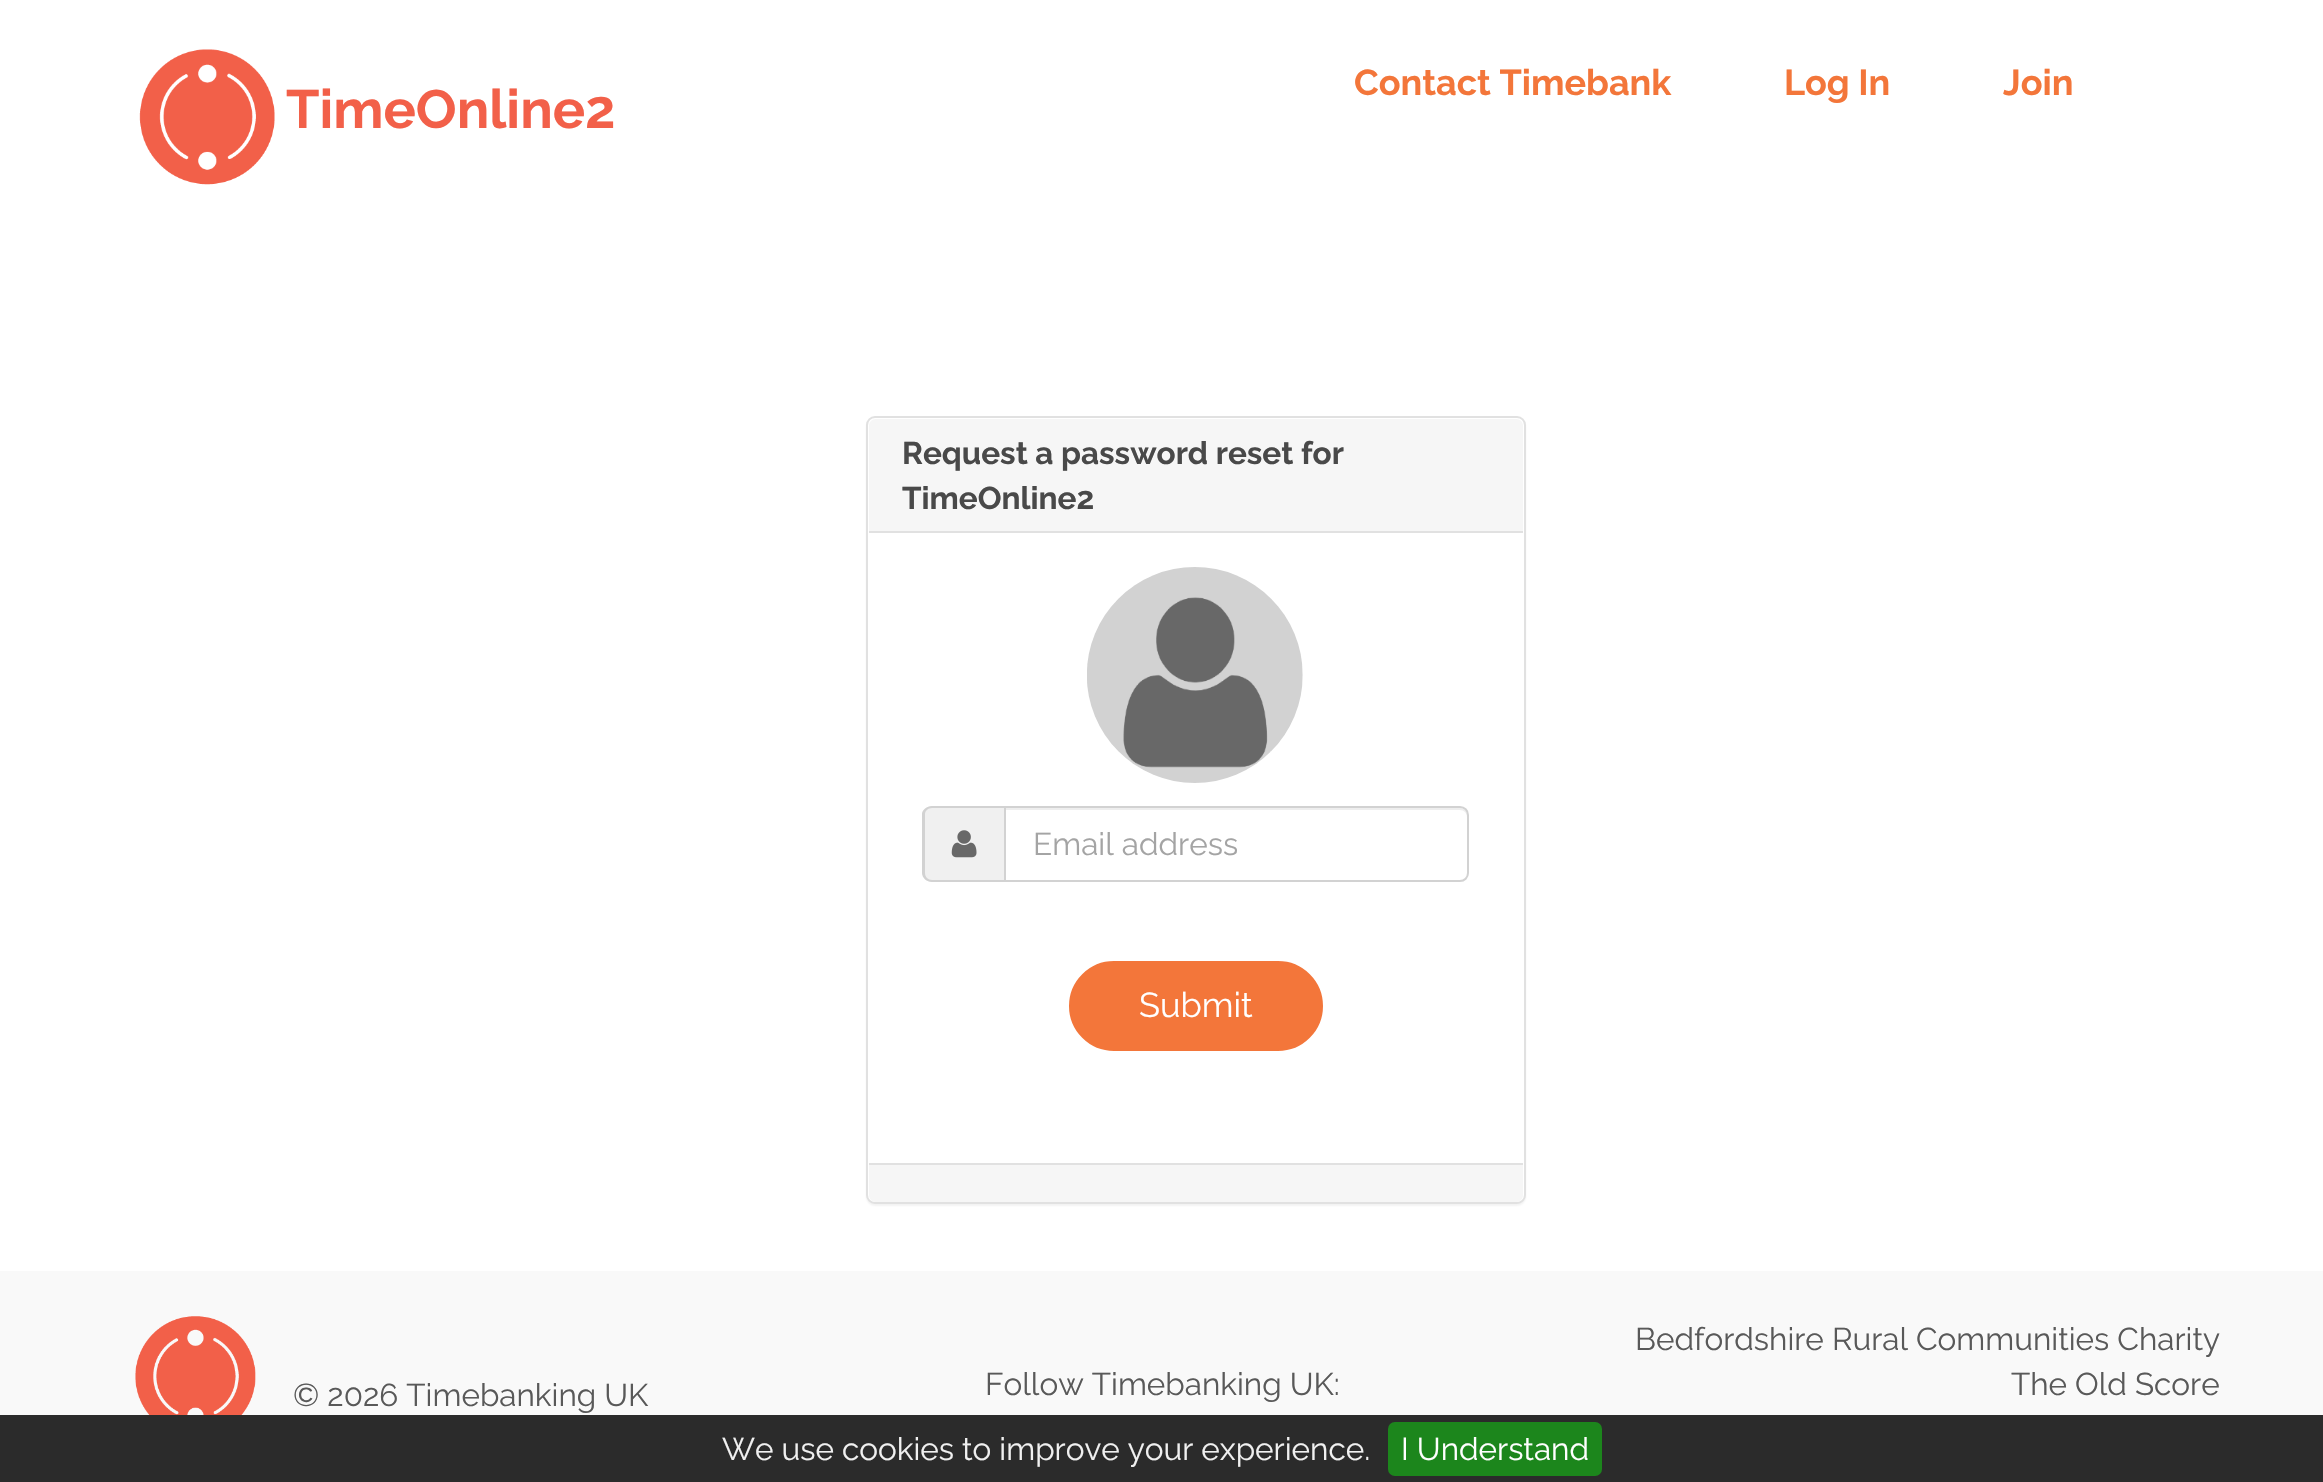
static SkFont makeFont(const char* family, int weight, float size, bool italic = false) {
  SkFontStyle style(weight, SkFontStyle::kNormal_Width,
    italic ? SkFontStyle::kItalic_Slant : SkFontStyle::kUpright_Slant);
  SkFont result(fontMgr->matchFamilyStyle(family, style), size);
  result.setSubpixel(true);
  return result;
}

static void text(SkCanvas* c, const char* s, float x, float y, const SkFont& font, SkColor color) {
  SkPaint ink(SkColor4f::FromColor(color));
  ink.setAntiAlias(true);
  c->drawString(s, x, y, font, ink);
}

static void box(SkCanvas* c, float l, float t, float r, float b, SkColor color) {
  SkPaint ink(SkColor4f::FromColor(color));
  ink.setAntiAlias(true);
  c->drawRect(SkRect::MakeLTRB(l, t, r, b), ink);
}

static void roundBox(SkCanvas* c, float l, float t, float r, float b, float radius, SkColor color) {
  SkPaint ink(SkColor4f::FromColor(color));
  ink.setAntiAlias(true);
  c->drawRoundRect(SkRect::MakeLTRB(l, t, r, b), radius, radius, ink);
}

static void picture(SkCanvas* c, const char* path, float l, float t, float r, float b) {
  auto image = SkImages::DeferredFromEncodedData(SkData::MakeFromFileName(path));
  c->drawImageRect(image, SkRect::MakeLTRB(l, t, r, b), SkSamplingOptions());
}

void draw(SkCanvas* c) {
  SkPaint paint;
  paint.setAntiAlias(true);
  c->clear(0xffffffff);
  picture(c, "img_01.png", 139, 49, 275, 185);
  SkFont face1 = makeFont("Raleway", 700, 54);
  text(c, "TimeOnline2", 286, 128, face1, 0xfff26049);
  SkFont face2 = makeFont("Raleway", 700, 36);
  text(c, "Contact Timebank", 1354, 95, face2, 0xfff3763a);
  text(c, "Log In", 1784, 95, face2, 0xfff3763a);
  text(c, "Join", 2003, 95, face2, 0xfff3763a);
  paint.setColor(0x0d1c1c1c);
  paint.setMaskFilter(SkMaskFilter::MakeBlur(kNormal_SkBlurStyle, 1));
  c->drawRoundRect(SkRect::MakeLTRB(866, 419, 1526, 1206), 9, 9, paint);
  paint.setMaskFilter(nullptr);
  paint.setColor(0xffffffff);
  c->drawRoundRect(SkRect::MakeLTRB(867, 417, 1525, 1203), 8, 8, paint);
  paint.setStyle(SkPaint::kStroke_Style);
  paint.setStrokeWidth(2);
  paint.setColor(0xffe1e1e1);
  c->drawRoundRect(SkRect::MakeLTRB(867, 417, 1525, 1203), 8, 8, paint);
  paint.setStyle(SkPaint::kFill_Style);
  paint.setColor(0xfff6f6f6);
  c->drawPath(SkPathBuilder().moveTo(876, 419).lineTo(1516, 419).cubicTo(1520, 419, 1523, 422, 1523, 426).lineTo(1523, 533).lineTo(869, 533).lineTo(869, 426).cubicTo(869, 422, 872, 419, 876, 419).close().detach(), paint);
  box(c, 869, 531, 1523, 533, 0xffe1e1e1);
  SkFont face3 = makeFont("Raleway", 700, 31.5f);
  text(c, "Request a password reset for", 902, 464, face3, 0xff494949);
  text(c, "TimeOnline2", 902, 509, face3, 0xff494949);
  picture(c, "img_02.png", 1087, 567, 1303, 783);
  paint.setColor(0xfff0f0f0);
  c->drawPath(SkPathBuilder().moveTo(932, 806).lineTo(1004, 806).lineTo(1004, 882).lineTo(932, 882).cubicTo(927, 882, 923, 878, 923, 873).lineTo(923, 815).cubicTo(923, 810, 927, 806, 932, 806).close().detach(), paint);
  paint.setColor(0xffd2d2d2);
  c->drawPath(SkPathBuilder(SkPathFillType::kEvenOdd).moveTo(932, 806).lineTo(1004, 806).lineTo(1004, 882).lineTo(932, 882).cubicTo(927, 882, 922, 878, 922, 873).lineTo(922, 814).cubicTo(922, 810, 927, 806, 932, 806).close().moveTo(932, 808).lineTo(1004, 808).lineTo(1004, 880).lineTo(932, 880).cubicTo(928, 880, 925, 877, 925, 873).lineTo(925, 814).cubicTo(925, 811, 928, 808, 932, 808).close().detach(), paint);
  picture(c, "img_03.png", 951, 830, 977, 858);
  paint.setColor(0xffeeeeee);
  c->drawPath(SkPathBuilder().moveTo(1006, 810).lineTo(1460, 810).cubicTo(1464, 810, 1467, 813, 1467, 817).lineTo(1467, 815).cubicTo(1467, 811, 1464, 808, 1460, 808).lineTo(1006, 808).close().detach(), paint);
  paint.setStyle(SkPaint::kStroke_Style);
  paint.setColor(0xffd2d2d2);
  c->drawPath(SkPathBuilder().moveTo(1005, 807).lineTo(1460, 807).cubicTo(1464.5f, 807, 1468, 810.5f, 1468, 815).lineTo(1468, 873).cubicTo(1468, 877.5f, 1464.5f, 881, 1460, 881).lineTo(1005, 881).close().detach(), paint);
  SkFont face4 = makeFont("Raleway", 400, 31.5f);
  text(c, "Email address", 1033, 855, face4, 0xffa4a4a4);
  paint.setStyle(SkPaint::kFill_Style);
  paint.setColor(0xfff3763a);
  c->drawRoundRect(SkRect::MakeLTRB(1070, 962, 1322, 1050), 44, 44, paint);
  paint.setStyle(SkPaint::kStroke_Style);
  c->drawRoundRect(SkRect::MakeLTRB(1070, 962, 1322, 1050), 44, 44, paint);
  SkFont face5 = makeFont("Raleway", 400, 34.5f);
  text(c, "Submit", 1139, 1017, face5, 0xffffffff);
  paint.setStyle(SkPaint::kFill_Style);
  paint.setColor(0xfff6f6f6);
  c->drawPath(SkPathBuilder().moveTo(869, 1163).lineTo(1523, 1163).lineTo(1523, 1195).cubicTo(1523, 1199, 1520, 1202, 1516, 1202).lineTo(876, 1202).cubicTo(872, 1202, 869, 1199, 869, 1195).close().detach(), paint);
  box(c, 869, 1163, 1523, 1165, 0xffe1e1e1);
  box(c, 0, 1271, 2323, 1415, 0xfff9f9f9);
  picture(c, "img_04.png", 135, 1316, 256, 1415);
  text(c, "© 2026 Timebanking UK", 293, 1406, face4, 0xff595959);
  text(c, "Follow Timebanking UK:", 985, 1395, face4, 0xff595959);
  text(c, "Bedfordshire Rural Communities Charity", 1635, 1350, face4, 0xff595959);
  text(c, "The Old Score", 2011, 1395, face4, 0xff595959);
  box(c, 0, 1415, 2323, 1482, 0xff2b2b2b);
  text(c, "We use cookies to improve your experience.", 722, 1460, face4, 0xfff0f0f0);
  roundBox(c, 1388, 1422, 1602, 1476, 7, 0xff1c861c);
  text(c, "I Understand", 1401, 1460, face4, 0xffffffff);
}
